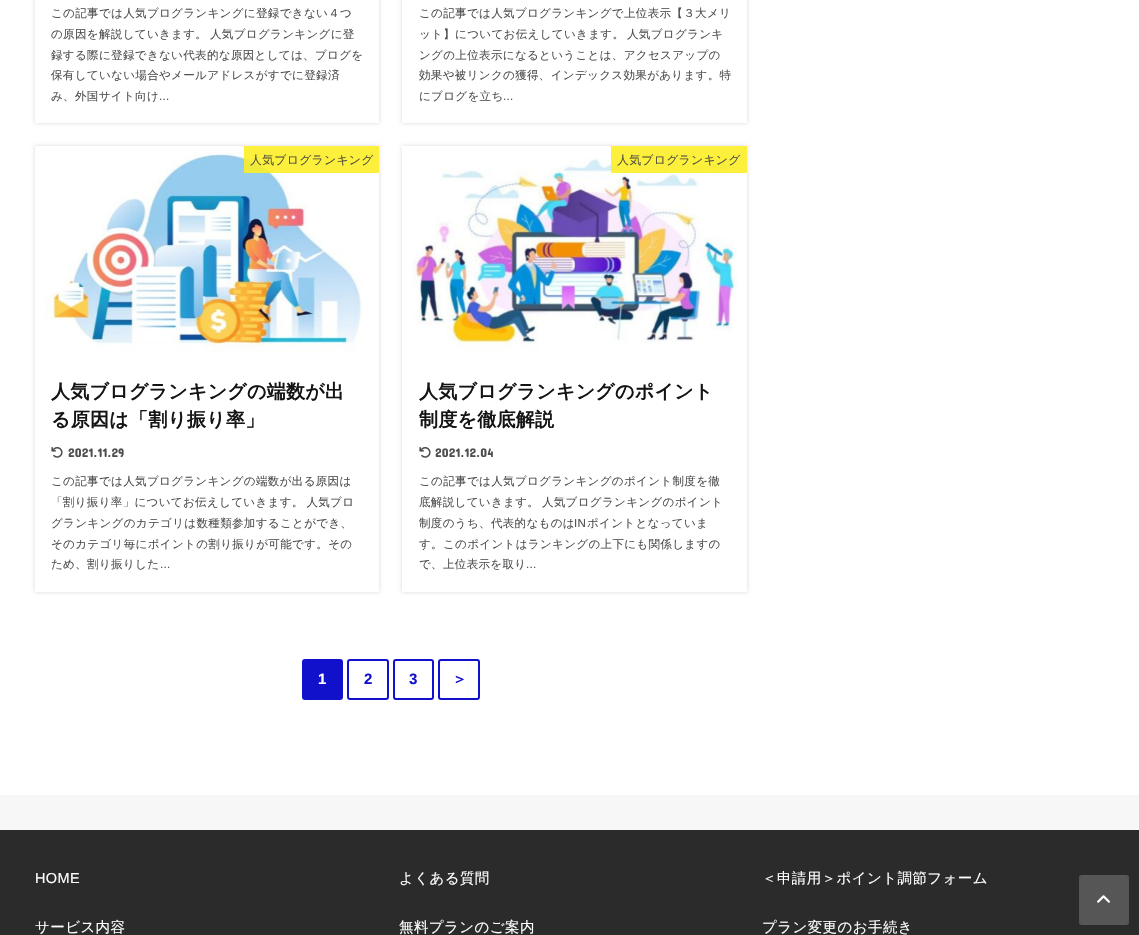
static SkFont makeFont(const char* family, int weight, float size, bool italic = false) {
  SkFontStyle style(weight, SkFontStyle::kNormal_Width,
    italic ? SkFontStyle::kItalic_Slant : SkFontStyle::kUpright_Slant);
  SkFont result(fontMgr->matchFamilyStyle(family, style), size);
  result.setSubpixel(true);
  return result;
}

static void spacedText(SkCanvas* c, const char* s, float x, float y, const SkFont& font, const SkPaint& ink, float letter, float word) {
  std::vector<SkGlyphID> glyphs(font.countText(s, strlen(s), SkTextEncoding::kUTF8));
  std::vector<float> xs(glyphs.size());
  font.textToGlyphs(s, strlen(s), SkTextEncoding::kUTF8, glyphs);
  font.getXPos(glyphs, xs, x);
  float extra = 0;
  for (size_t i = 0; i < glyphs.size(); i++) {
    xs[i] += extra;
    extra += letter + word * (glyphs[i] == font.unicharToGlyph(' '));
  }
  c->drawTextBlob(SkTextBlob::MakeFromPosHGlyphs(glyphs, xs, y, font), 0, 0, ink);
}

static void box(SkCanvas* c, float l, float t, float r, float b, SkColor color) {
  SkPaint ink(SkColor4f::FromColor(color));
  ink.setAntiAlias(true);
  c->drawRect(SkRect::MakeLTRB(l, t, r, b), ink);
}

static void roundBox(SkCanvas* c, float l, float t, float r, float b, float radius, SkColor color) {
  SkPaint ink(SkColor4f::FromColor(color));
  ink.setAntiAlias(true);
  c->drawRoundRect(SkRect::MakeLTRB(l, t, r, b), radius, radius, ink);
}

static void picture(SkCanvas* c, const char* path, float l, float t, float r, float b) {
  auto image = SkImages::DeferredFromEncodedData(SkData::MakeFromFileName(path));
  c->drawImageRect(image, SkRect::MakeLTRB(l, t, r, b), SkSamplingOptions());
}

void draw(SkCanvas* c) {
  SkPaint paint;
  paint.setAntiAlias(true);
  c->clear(0xfff7f7f7);
  box(c, 0, 0, 1139, 795, 0xffffffff);
  c->save();
  c->clipPath(SkPathBuilder(SkPathFillType::kEvenOdd).moveTo(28, 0).lineTo(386, 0).lineTo(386, 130).lineTo(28, 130).close().moveTo(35, -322).lineTo(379, -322).lineTo(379, 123).lineTo(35, 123).close().detach(), true);
  paint.setColor(0x26000000);
  paint.setMaskFilter(SkMaskFilter::MakeBlur(kNormal_SkBlurStyle, 2));
  c->drawRect(SkRect::MakeLTRB(35, -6, 379, 123), paint);
  paint.setMaskFilter(nullptr);
  c->restore();
  SkFont face1 = makeFont("WenQuanYi Zen Hei", 500, 11.55f);
  paint.setColor(0xff4f4f4f);
  spacedText(c, "この記事では人気ブログランキングに登録できない４つ", 51, 17, face1, paint, 0.3f, 0);
  spacedText(c, "の原因を解説していきます。 人気ブログランキングに登", 51, 38, face1, paint, 0.3f, -1);
  spacedText(c, "録する際に登録できない代表的な原因としては、ブログを", 51, 59, face1, paint, 0.3f, 0);
  spacedText(c, "保有していない場合やメールアドレスがすでに登録済", 51, 79, face1, paint, 0.3f, 0);
  spacedText(c, "み、外国サイト向け", 51, 100, face1, paint, 0.3f, 0);
  SkFont face2 = makeFont("Liberation Sans", 400, 11.55f);
  spacedText(c, "...", 159, 100, face2, paint, 0.3f, 0);
  c->save();
  c->clipPath(SkPathBuilder(SkPathFillType::kEvenOdd).moveTo(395, 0).lineTo(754, 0).lineTo(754, 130).lineTo(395, 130).close().moveTo(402, -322).lineTo(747, -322).lineTo(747, 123).lineTo(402, 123).close().detach(), true);
  paint.setColor(0x26000000);
  paint.setMaskFilter(SkMaskFilter::MakeBlur(kNormal_SkBlurStyle, 2));
  c->drawRect(SkRect::MakeLTRB(402, -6, 747, 123), paint);
  paint.setMaskFilter(nullptr);
  c->restore();
  paint.setColor(0xff4f4f4f);
  spacedText(c, "この記事では人気ブログランキングで上位表示【３大メリ", 419, 17, face1, paint, 0.3f, 0);
  spacedText(c, "ット】についてお伝えしていきます。 人気ブログランキ", 419, 38, face1, paint, 0.3f, -1);
  spacedText(c, "ングの上位表示になるということは、アクセスアップの", 419, 59, face1, paint, 0.3f, 0);
  spacedText(c, "効果や被リンクの獲得、インデックス効果があります。特", 419, 79, face1, paint, 0.3f, 0);
  spacedText(c, "にブログを立ち", 419, 100, face1, paint, 0.3f, 0);
  spacedText(c, "...", 503, 100, face2, paint, 0.3f, 0);
  c->save();
  c->clipPath(SkPathBuilder(SkPathFillType::kEvenOdd).moveTo(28, 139).lineTo(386, 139).lineTo(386, 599).lineTo(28, 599).close().moveTo(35, 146).lineTo(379, 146).lineTo(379, 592).lineTo(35, 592).close().detach(), true);
  paint.setColor(0x26000000);
  paint.setMaskFilter(SkMaskFilter::MakeBlur(kNormal_SkBlurStyle, 2));
  c->drawRect(SkRect::MakeLTRB(35, 146, 379, 592), paint);
  paint.setMaskFilter(nullptr);
  c->restore();
  picture(c, "img_01.png", 45, 149, 364, 353);
  box(c, 244, 146, 379, 173, 0xe0fcee21);
  SkFont face3 = makeFont("WenQuanYi Zen Hei", 500, 11.9f);
  paint.setColor(0xff55533e);
  spacedText(c, "人気ブログランキング", 250, 164, face3, paint, 0.25f, 0);
  SkFont face4 = makeFont("WenQuanYi Zen Hei", 700, 19);
  paint.setColor(0xff141414);
  spacedText(c, "人気ブログランキングの端数が出", 51, 398, face4, paint, 0.25f, 0);
  spacedText(c, "る原因は「割り振り率」", 51, 426, face4, paint, 0.25f, 0);
  picture(c, "img_02.png", 51, 447, 63, 458);
  SkFont face5 = makeFont("Concert One", 400, 12.5f);
  paint.setColor(0xff4f4f4f);
  spacedText(c, "2021.11.29", 68, 457, face5, paint, 0.25f, 0);
  spacedText(c, "この記事では人気ブログランキングの端数が出る原因は", 51, 485, face1, paint, 0.3f, 0);
  spacedText(c, "「割り振り率」についてお伝えしていきます。 人気ブロ", 51, 506, face1, paint, 0.3f, -1);
  spacedText(c, "グランキングのカテゴリは数種類参加することができ、", 51, 527, face1, paint, 0.3f, 0);
  spacedText(c, "そのカテゴリ毎にポイントの割り振りが可能です。その", 51, 548, face1, paint, 0.3f, 0);
  spacedText(c, "ため、割り振りした", 51, 568, face1, paint, 0.3f, 0);
  spacedText(c, "...", 160, 568, face2, paint, 0.3f, 0);
  c->save();
  c->clipPath(SkPathBuilder(SkPathFillType::kEvenOdd).moveTo(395, 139).lineTo(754, 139).lineTo(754, 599).lineTo(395, 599).close().moveTo(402, 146).lineTo(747, 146).lineTo(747, 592).lineTo(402, 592).close().detach(), true);
  paint.setColor(0x26000000);
  paint.setMaskFilter(SkMaskFilter::MakeBlur(kNormal_SkBlurStyle, 2));
  c->drawRect(SkRect::MakeLTRB(402, 146, 747, 592), paint);
  paint.setMaskFilter(nullptr);
  c->restore();
  picture(c, "img_03.png", 412, 158, 738, 352);
  box(c, 611, 146, 747, 173, 0xe0fcee21);
  paint.setColor(0xff55533e);
  spacedText(c, "人気ブログランキング", 617, 164, face3, paint, 0.25f, 0);
  paint.setColor(0xff141414);
  spacedText(c, "人気ブログランキングのポイント", 419, 398, face4, paint, 0.25f, 0);
  spacedText(c, "制度を徹底解説", 419, 426, face4, paint, 0.25f, 0);
  picture(c, "img_02.png", 419, 447, 431, 458);
  paint.setColor(0xff4f4f4f);
  spacedText(c, "2021.12.04", 435, 457, face5, paint, 0.25f, 0);
  spacedText(c, "この記事では人気ブログランキングのポイント制度を徹", 419, 485, face1, paint, 0.3f, 0);
  spacedText(c, "底解説していきます。 人気ブログランキングのポイント", 419, 506, face1, paint, 0.3f, -1);
  spacedText(c, "制度のうち、代表的なものは", 419, 527, face1, paint, 0.3f, 0);
  spacedText(c, "IN", 574, 527, face2, paint, 0.3f, 0);
  spacedText(c, "ポイントとなっていま", 587, 527, face1, paint, 0.3f, 0);
  spacedText(c, "す。このポイントはランキングの上下にも関係しますの", 419, 548, face1, paint, 0.3f, 0);
  spacedText(c, "で、上位表示を取り", 419, 568, face1, paint, 0.3f, 0);
  spacedText(c, "...", 526, 568, face2, paint, 0.3f, 0);
  paint.setColor(0xff1111cc);
  c->drawRoundRect(SkRect::MakeLTRB(303, 660, 342, 699), 2, 2, paint);
  paint.setStyle(SkPaint::kStroke_Style);
  paint.setStrokeWidth(2);
  c->drawRoundRect(SkRect::MakeLTRB(303, 660, 342, 699), 2, 2, paint);
  SkFont face6 = makeFont("Liberation Sans", 700, 15);
  paint.setStyle(SkPaint::kFill_Style);
  paint.setColor(0xffffffff);
  spacedText(c, "1", 318, 684, face6, paint, 0.25f, 0);
  paint.setStyle(SkPaint::kStroke_Style);
  paint.setColor(0xff1111cc);
  c->drawRoundRect(SkRect::MakeLTRB(348, 660, 388, 699), 2, 2, paint);
  paint.setStyle(SkPaint::kFill_Style);
  spacedText(c, "2", 364, 684, face6, paint, 0.25f, 0);
  paint.setStyle(SkPaint::kStroke_Style);
  c->drawRoundRect(SkRect::MakeLTRB(394, 660, 433, 699), 2, 2, paint);
  paint.setStyle(SkPaint::kFill_Style);
  spacedText(c, "3", 409, 684, face6, paint, 0.25f, 0);
  paint.setStyle(SkPaint::kStroke_Style);
  c->drawRoundRect(SkRect::MakeLTRB(439, 660, 479, 699), 2, 2, paint);
  SkFont face7 = makeFont("WenQuanYi Zen Hei", 700, 15);
  paint.setStyle(SkPaint::kFill_Style);
  spacedText(c, "＞", 452, 684, face7, paint, 0.25f, 0);
  box(c, 0, 830, 1139, 935, 0xff2b2b2b);
  SkFont face8 = makeFont("Liberation Sans", 400, 14.5f);
  paint.setColor(0xffffffff);
  spacedText(c, "HOME", 35, 883, face8, paint, 0.4f, 0);
  SkFont face9 = makeFont("WenQuanYi Zen Hei", 500, 14.5f);
  spacedText(c, "サービス内容", 35, 932, face9, paint, 0.4f, 0);
  spacedText(c, "よくある質問", 399, 883, face9, paint, 0.4f, 0);
  spacedText(c, "無料プランのご案内", 399, 932, face9, paint, 0.4f, 0);
  spacedText(c, "＜申請用＞ポイント調節フォーム", 762, 883, face9, paint, 0.4f, 0);
  spacedText(c, "プラン変更のお手続き", 762, 932, face9, paint, 0.4f, 0);
  roundBox(c, 1079, 875, 1129, 925, 3, 0xff565656);
  picture(c, "img_04.png", 1097, 895, 1110, 903);
}
